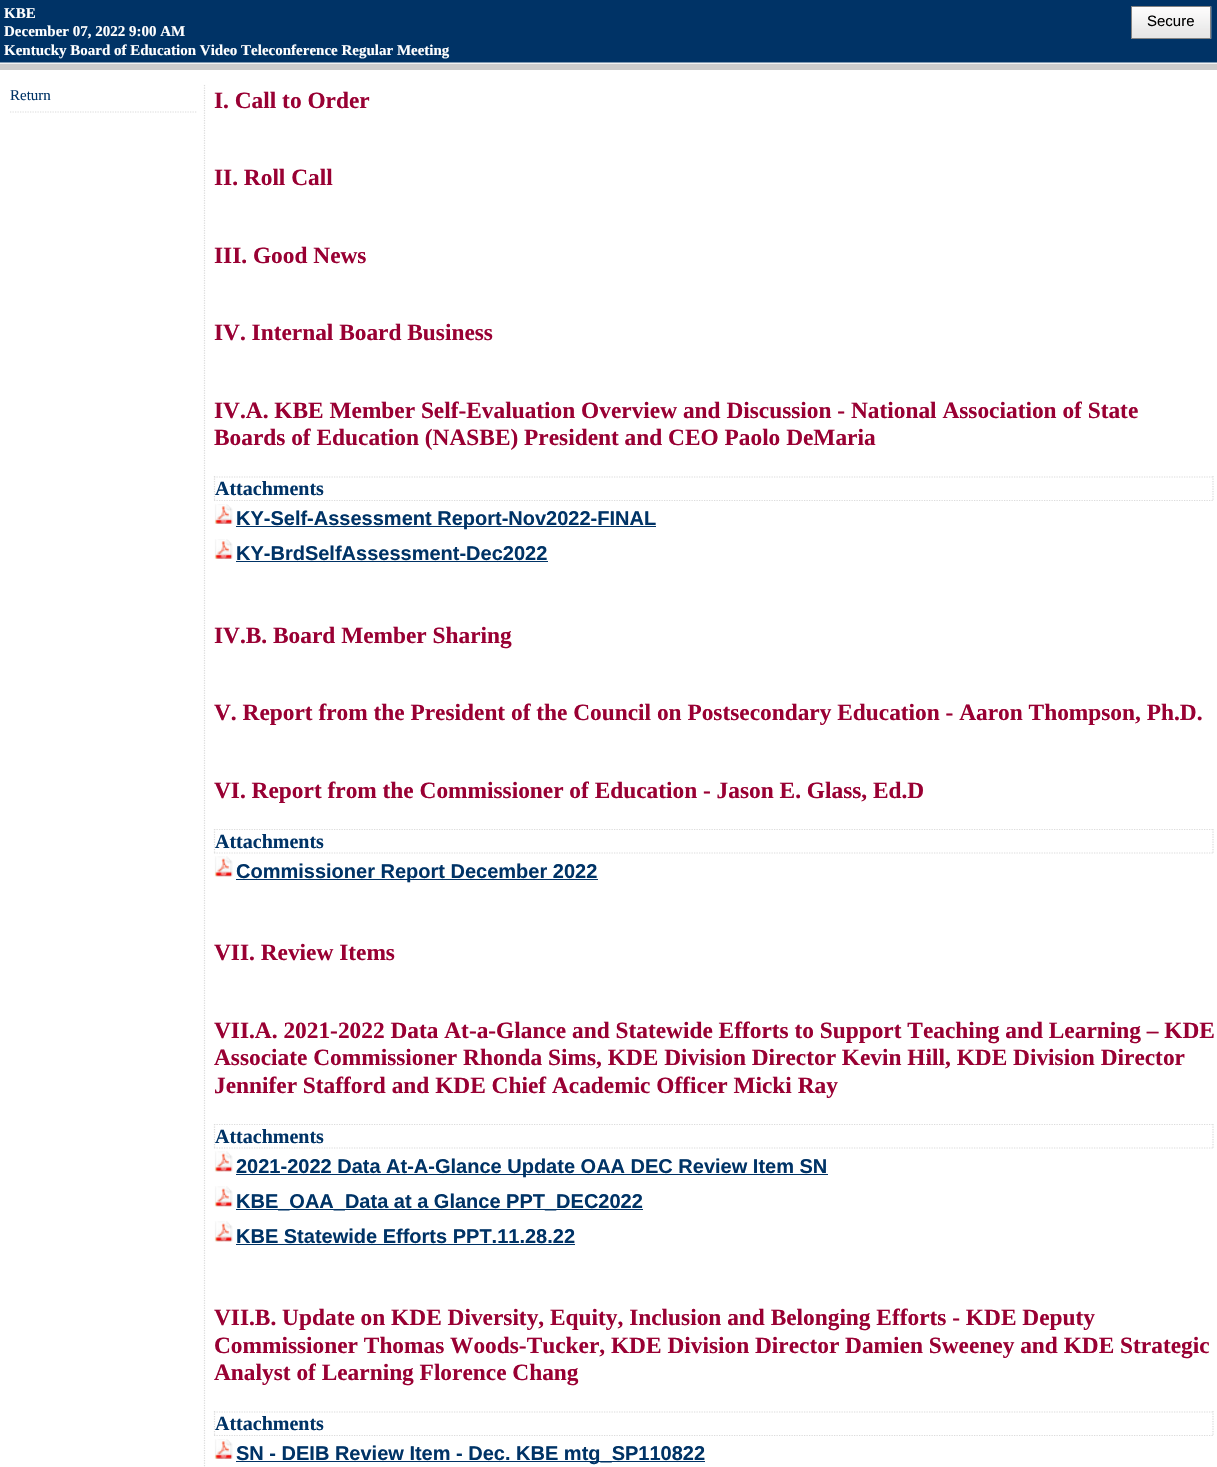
static SkFont makeFont(const char* family, int weight, float size, bool italic = false) {
  SkFontStyle style(weight, SkFontStyle::kNormal_Width,
    italic ? SkFontStyle::kItalic_Slant : SkFontStyle::kUpright_Slant);
  SkFont result(fontMgr->matchFamilyStyle(family, style), size);
  result.setSubpixel(true);
  return result;
}

static void text(SkCanvas* c, const char* s, float x, float y, const SkFont& font, SkColor color) {
  SkPaint ink(SkColor4f::FromColor(color));
  ink.setAntiAlias(true);
  c->drawString(s, x, y, font, ink);
}

static void box(SkCanvas* c, float l, float t, float r, float b, SkColor color) {
  SkPaint ink(SkColor4f::FromColor(color));
  ink.setAntiAlias(true);
  c->drawRect(SkRect::MakeLTRB(l, t, r, b), ink);
}

static void picture(SkCanvas* c, const char* path, float l, float t, float r, float b) {
  auto image = SkImages::DeferredFromEncodedData(SkData::MakeFromFileName(path));
  c->drawImageRect(image, SkRect::MakeLTRB(l, t, r, b), SkSamplingOptions());
}

void draw(SkCanvas* c) {
  SkPaint paint;
  paint.setAntiAlias(true);
  c->clear(0xffffffff);
  picture(c, "img_01.png", 0, 0, 1217, 70);
  SkFont face1 = makeFont("Liberation Serif", 700, 15);
  text(c, "KBE", 4, 18, face1, 0xffffffff);
  text(c, "December 07, 2022 9:00 AM", 4, 36, face1, 0xffffffff);
  text(c, "Kentucky Board of Education Video Teleconference Regular Meeting", 4, 55, face1, 0xffffffff);
  picture(c, "img_02.png", 1132, 6, 1212, 39);
  paint.setStyle(SkPaint::kStroke_Style);
  paint.setStrokeWidth(1);
  paint.setColor(0xff828282);
  c->drawRect(SkRect::MakeLTRB(1131.5f, 6.5f, 1210.5f, 38.5f), paint);
  SkFont face2 = makeFont("Liberation Sans", 400, 15);
  text(c, "Secure", 1147, 26, face2, 0xff000000);
  paint.setStrokeWidth(1.2f);
  paint.setColor(0xffdcdcdc);
  paint.setPathEffect(SkDashPathEffect::Make({{1.25f, 1.25f}}, 0));
  c->drawPath(SkPathBuilder().moveTo(204.5f, 85).lineTo(204.5f, 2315).detach(), paint);
  paint.setPathEffect(nullptr);
  paint.setPathEffect(SkDashPathEffect::Make({{1.25f, 1.25f}}, 0));
  c->drawPath(SkPathBuilder().moveTo(10, 112).lineTo(197.5f, 112).detach(), paint);
  paint.setPathEffect(nullptr);
  SkFont face3 = makeFont("Liberation Serif", 400, 15);
  text(c, "Return", 10, 100, face3, 0xff003366);
  SkFont face4 = makeFont("Liberation Serif", 700, 23.35f);
  text(c, "I. Call to Order", 214, 108, face4, 0xff990033);
  text(c, "II. Roll Call", 214, 185, face4, 0xff990033);
  text(c, "III. Good News", 214, 263, face4, 0xff990033);
  text(c, "IV. Internal Board Business", 214, 340, face4, 0xff990033);
  text(c, "IV.A. KBE Member Self-Evaluation Overview and Discussion - National Association of State", 214, 418, face4, 0xff990033);
  text(c, "Boards of Education (NASBE) President and CEO Paolo DeMaria", 214, 445, face4, 0xff990033);
  paint.setPathEffect(SkDashPathEffect::Make({{1.25f, 1.25f}}, 0));
  c->drawPath(SkPathBuilder().moveTo(214, 477).lineTo(1214, 477).detach(), paint);
  paint.setPathEffect(nullptr);
  paint.setPathEffect(SkDashPathEffect::Make({{1.25f, 1.25f}}, 0));
  c->drawPath(SkPathBuilder().moveTo(1213, 476).lineTo(1213, 501).detach(), paint);
  paint.setPathEffect(nullptr);
  paint.setPathEffect(SkDashPathEffect::Make({{1.25f, 1.25f}}, 0));
  c->drawPath(SkPathBuilder().moveTo(214, 500.5f).lineTo(1214, 500.5f).detach(), paint);
  paint.setPathEffect(nullptr);
  paint.setPathEffect(SkDashPathEffect::Make({{1.25f, 1.25f}}, 0));
  c->drawPath(SkPathBuilder().moveTo(214.5f, 476).lineTo(214.5f, 501).detach(), paint);
  paint.setPathEffect(nullptr);
  SkFont face5 = makeFont("Liberation Serif", 700, 20);
  text(c, "Attachments", 215, 495, face5, 0xff003366);
  picture(c, "img_03.png", 214, 504, 233, 524);
  box(c, 236, 526, 656, 527, 0xff003366);
  SkFont face6 = makeFont("Liberation Sans", 700, 20);
  text(c, "KY-Self-Assessment Report-Nov2022-FINAL", 236, 525, face6, 0xff003366);
  picture(c, "img_03.png", 214, 539, 233, 559);
  text(c, "KY-BrdSelfAssessment-Dec2022", 236, 560, face6, 0xff003366);
  box(c, 236, 561, 548, 562, 0xff003366);
  text(c, "IV.B. Board Member Sharing", 214, 643, face4, 0xff990033);
  text(c, "V. Report from the President of the Council on Postsecondary Education - Aaron Thompson, Ph.D.", 214, 720, face4, 0xff990033);
  text(c, "VI. Report from the Commissioner of Education - Jason E. Glass, Ed.D", 214, 798, face4, 0xff990033);
  paint.setPathEffect(SkDashPathEffect::Make({{1.25f, 1.25f}}, 0));
  c->drawPath(SkPathBuilder().moveTo(214, 829.5f).lineTo(1214, 829.5f).detach(), paint);
  paint.setPathEffect(nullptr);
  paint.setPathEffect(SkDashPathEffect::Make({{1.25f, 1.25f}}, 0));
  c->drawPath(SkPathBuilder().moveTo(1213, 829).lineTo(1213, 854).detach(), paint);
  paint.setPathEffect(nullptr);
  paint.setPathEffect(SkDashPathEffect::Make({{1.25f, 1.25f}}, 0));
  c->drawPath(SkPathBuilder().moveTo(214, 853).lineTo(1214, 853).detach(), paint);
  paint.setPathEffect(nullptr);
  paint.setPathEffect(SkDashPathEffect::Make({{1.25f, 1.25f}}, 0));
  c->drawPath(SkPathBuilder().moveTo(214.5f, 829).lineTo(214.5f, 854).detach(), paint);
  paint.setPathEffect(nullptr);
  text(c, "Attachments", 215, 848, face5, 0xff003366);
  picture(c, "img_04.png", 214, 856, 233, 877);
  box(c, 236, 879, 598, 880, 0xff003366);
  text(c, "Commissioner Report December 2022", 236, 878, face6, 0xff003366);
  text(c, "VII. Review Items", 214, 960, face4, 0xff990033);
  text(c, "VII.A. 2021-2022 Data At-a-Glance and Statewide Efforts to Support Teaching and Learning – KDE", 214, 1038, face4, 0xff990033);
  text(c, "Associate Commissioner Rhonda Sims, KDE Division Director Kevin Hill, KDE Division Director", 214, 1065, face4, 0xff990033);
  text(c, "Jennifer Stafford and KDE Chief Academic Officer Micki Ray", 214, 1093, face4, 0xff990033);
  paint.setPathEffect(SkDashPathEffect::Make({{1.25f, 1.25f}}, 0));
  c->drawPath(SkPathBuilder().moveTo(214, 1124.5f).lineTo(1214, 1124.5f).detach(), paint);
  paint.setPathEffect(nullptr);
  paint.setPathEffect(SkDashPathEffect::Make({{1.25f, 1.25f}}, 0));
  c->drawPath(SkPathBuilder().moveTo(1213, 1124).lineTo(1213, 1149).detach(), paint);
  paint.setPathEffect(nullptr);
  paint.setPathEffect(SkDashPathEffect::Make({{1.25f, 1.25f}}, 0));
  c->drawPath(SkPathBuilder().moveTo(214, 1148).lineTo(1214, 1148).detach(), paint);
  paint.setPathEffect(nullptr);
  paint.setPathEffect(SkDashPathEffect::Make({{1.25f, 1.25f}}, 0));
  c->drawPath(SkPathBuilder().moveTo(214.5f, 1124).lineTo(214.5f, 1149).detach(), paint);
  paint.setPathEffect(nullptr);
  text(c, "Attachments", 215, 1143, face5, 0xff003366);
  picture(c, "img_04.png", 214, 1151, 233, 1172);
  box(c, 236, 1174, 828, 1175, 0xff003366);
  text(c, "2021-2022 Data At-A-Glance Update OAA DEC Review Item SN", 236, 1173, face6, 0xff003366);
  picture(c, "img_04.png", 214, 1186, 233, 1207);
  box(c, 236, 1209, 643, 1210, 0xff003366);
  text(c, "KBE_OAA_Data at a Glance PPT_DEC2022", 236, 1208, face6, 0xff003366);
  picture(c, "img_04.png", 214, 1221, 233, 1242);
  text(c, "KBE Statewide Efforts PPT.11.28.22", 236, 1243, face6, 0xff003366);
  box(c, 236, 1244, 575, 1245, 0xff003366);
  text(c, "VII.B. Update on KDE Diversity, Equity, Inclusion and Belonging Efforts - KDE Deputy", 214, 1325, face4, 0xff990033);
  text(c, "Commissioner Thomas Woods-Tucker, KDE Division Director Damien Sweeney and KDE Strategic", 214, 1353, face4, 0xff990033);
  text(c, "Analyst of Learning Florence Chang", 214, 1380, face4, 0xff990033);
  paint.setPathEffect(SkDashPathEffect::Make({{1.25f, 1.25f}}, 0));
  c->drawPath(SkPathBuilder().moveTo(214, 1412).lineTo(1214, 1412).detach(), paint);
  paint.setPathEffect(nullptr);
  paint.setPathEffect(SkDashPathEffect::Make({{1.25f, 1.25f}}, 0));
  c->drawPath(SkPathBuilder().moveTo(1213, 1411).lineTo(1213, 1436).detach(), paint);
  paint.setPathEffect(nullptr);
  paint.setPathEffect(SkDashPathEffect::Make({{1.25f, 1.25f}}, 0));
  c->drawPath(SkPathBuilder().moveTo(214, 1435.5f).lineTo(1214, 1435.5f).detach(), paint);
  paint.setPathEffect(nullptr);
  paint.setPathEffect(SkDashPathEffect::Make({{1.25f, 1.25f}}, 0));
  c->drawPath(SkPathBuilder().moveTo(214.5f, 1411).lineTo(214.5f, 1436).detach(), paint);
  paint.setPathEffect(nullptr);
  text(c, "Attachments", 215, 1430, face5, 0xff003366);
  picture(c, "img_03.png", 214, 1439, 233, 1459);
  box(c, 236, 1461, 705, 1462, 0xff003366);
  text(c, "SN - DEIB Review Item - Dec. KBE mtg_SP110822", 236, 1460, face6, 0xff003366);
}
